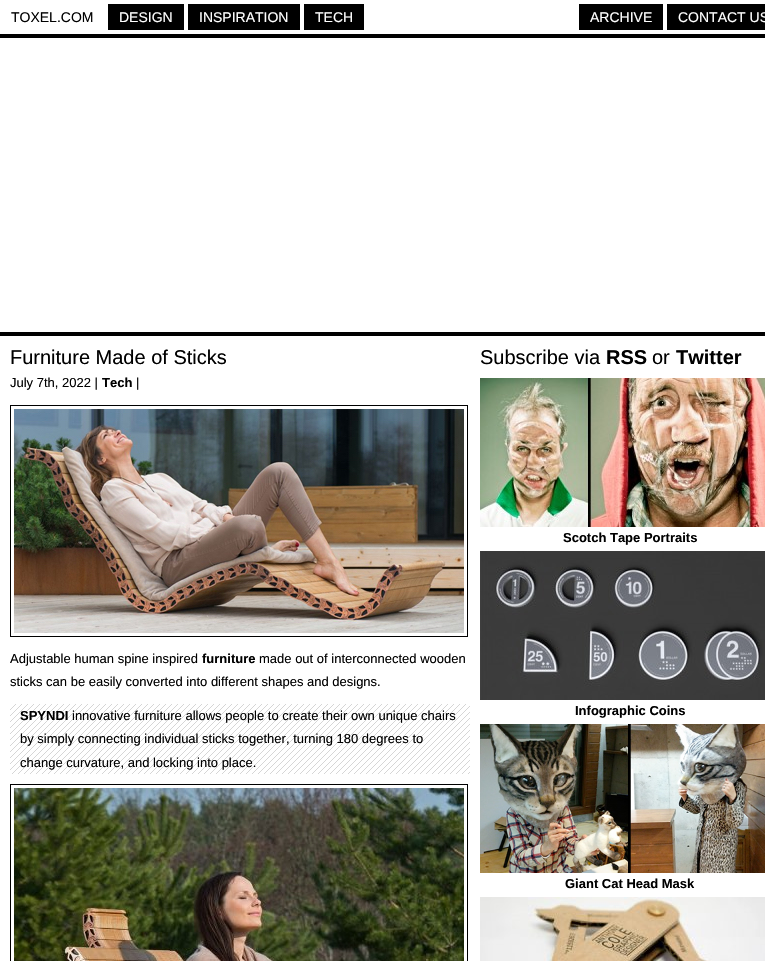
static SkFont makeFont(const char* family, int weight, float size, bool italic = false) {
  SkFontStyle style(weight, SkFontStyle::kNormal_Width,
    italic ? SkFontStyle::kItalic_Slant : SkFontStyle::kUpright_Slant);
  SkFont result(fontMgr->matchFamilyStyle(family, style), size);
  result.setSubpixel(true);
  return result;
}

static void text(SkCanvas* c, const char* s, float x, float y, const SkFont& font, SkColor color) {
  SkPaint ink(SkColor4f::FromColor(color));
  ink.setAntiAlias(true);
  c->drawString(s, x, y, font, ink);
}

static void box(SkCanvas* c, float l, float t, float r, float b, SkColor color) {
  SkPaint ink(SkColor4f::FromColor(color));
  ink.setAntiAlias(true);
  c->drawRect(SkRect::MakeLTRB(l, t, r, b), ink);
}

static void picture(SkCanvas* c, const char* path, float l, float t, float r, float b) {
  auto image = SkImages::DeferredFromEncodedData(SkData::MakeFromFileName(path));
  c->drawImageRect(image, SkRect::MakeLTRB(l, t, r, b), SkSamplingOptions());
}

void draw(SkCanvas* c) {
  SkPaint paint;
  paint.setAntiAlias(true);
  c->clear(0xffffffff);
  SkFont face1 = makeFont("Liberation Sans", 400, 14);
  text(c, "TOXEL.COM", 11, 22, face1, 0xff000000);
  box(c, 108, 4, 184, 30, 0xff000000);
  text(c, "DESIGN", 119, 22, face1, 0xffffffff);
  box(c, 188, 4, 300, 30, 0xff000000);
  text(c, "INSPIRATION", 199, 22, face1, 0xffffffff);
  box(c, 304, 4, 364, 30, 0xff000000);
  text(c, "TECH", 315, 22, face1, 0xffffffff);
  box(c, 579, 4, 663, 30, 0xff000000);
  text(c, "ARCHIVE", 590, 22, face1, 0xffffffff);
  box(c, 667, 4, 765, 30, 0xff000000);
  text(c, "CONTACT US", 678, 22, face1, 0xffffffff);
  box(c, 0, 34, 765, 38, 0xff000000);
  box(c, 0, 332, 765, 336, 0xff000000);
  SkFont face2 = makeFont("Liberation Sans", 400, 20);
  text(c, "Furniture Made of Sticks", 10, 364, face2, 0xff000000);
  SkFont face3 = makeFont("Liberation Sans", 400, 13);
  text(c, "July 7th, 2022 |", 10, 387, face3, 0xff000000);
  SkFont face4 = makeFont("Liberation Sans", 700, 13);
  text(c, "Tech", 102, 387, face4, 0xff000000);
  text(c, "|", 136, 387, face3, 0xff000000);
  paint.setStyle(SkPaint::kStroke_Style);
  paint.setStrokeWidth(1);
  paint.setColor(0xff000000);
  c->drawRect(SkRect::MakeLTRB(10.5f, 405.5f, 467.5f, 636.5f), paint);
  picture(c, "img_01.png", 14, 409, 464, 633);
  text(c, "Adjustable human spine inspired", 10, 663, face3, 0xff000000);
  text(c, "furniture", 202, 663, face4, 0xff000000);
  text(c, "made out of interconnected wooden", 259, 663, face3, 0xff000000);
  text(c, "sticks can be easily converted into different shapes and designs.", 10, 686, face3, 0xff000000);
  picture(c, "img_02.png", 10, 704, 470, 774);
  text(c, "SPYNDI", 20, 720, face4, 0xff000000);
  text(c, "innovative furniture allows people to create their own unique chairs", 72, 720, face3, 0xff000000);
  text(c, "by simply connecting individual sticks together, turning 180 degrees to", 20, 743, face3, 0xff000000);
  text(c, "change curvature, and locking into place.", 20, 767, face3, 0xff000000);
  c->drawRect(SkRect::MakeLTRB(10.5f, 784.5f, 467.5f, 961.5f), paint);
  picture(c, "img_03.png", 14, 788, 464, 961);
  text(c, "Subscribe via", 480, 364, face2, 0xff000000);
  SkFont face5 = makeFont("Liberation Sans", 700, 20);
  text(c, "RSS", 606, 364, face5, 0xff000000);
  text(c, "or", 652, 364, face2, 0xff000000);
  text(c, "Twitter", 676, 364, face5, 0xff000000);
  picture(c, "img_04.png", 480, 378, 765, 527);
  text(c, "Scotch Tape Portraits", 563, 542, face4, 0xff000000);
  picture(c, "img_05.png", 480, 551, 765, 700);
  text(c, "Infographic Coins", 575, 715, face4, 0xff000000);
  picture(c, "img_06.png", 480, 724, 765, 873);
  text(c, "Giant Cat Head Mask", 565, 888, face4, 0xff000000);
  picture(c, "img_07.png", 480, 897, 765, 961);
}
